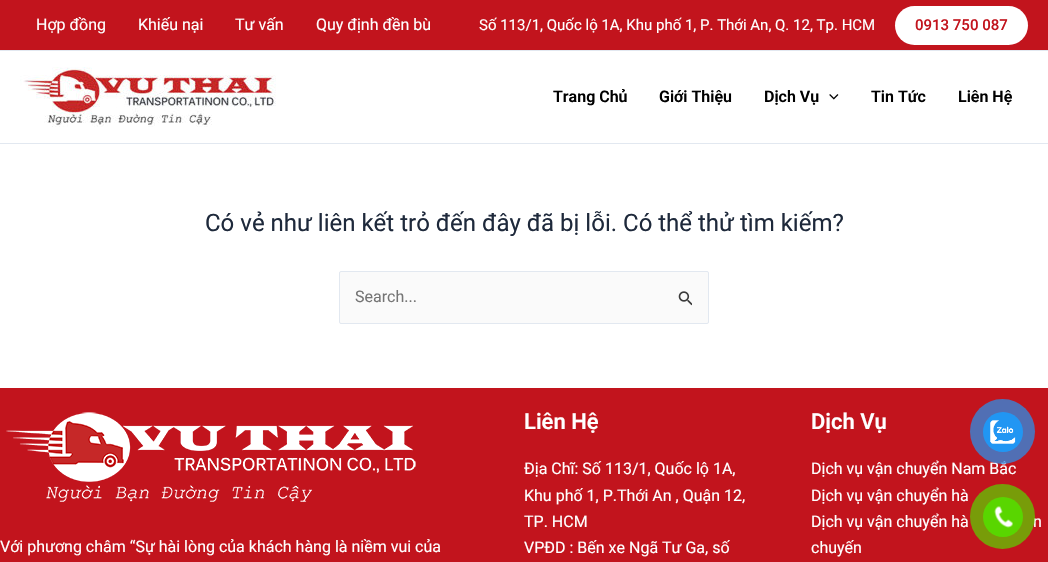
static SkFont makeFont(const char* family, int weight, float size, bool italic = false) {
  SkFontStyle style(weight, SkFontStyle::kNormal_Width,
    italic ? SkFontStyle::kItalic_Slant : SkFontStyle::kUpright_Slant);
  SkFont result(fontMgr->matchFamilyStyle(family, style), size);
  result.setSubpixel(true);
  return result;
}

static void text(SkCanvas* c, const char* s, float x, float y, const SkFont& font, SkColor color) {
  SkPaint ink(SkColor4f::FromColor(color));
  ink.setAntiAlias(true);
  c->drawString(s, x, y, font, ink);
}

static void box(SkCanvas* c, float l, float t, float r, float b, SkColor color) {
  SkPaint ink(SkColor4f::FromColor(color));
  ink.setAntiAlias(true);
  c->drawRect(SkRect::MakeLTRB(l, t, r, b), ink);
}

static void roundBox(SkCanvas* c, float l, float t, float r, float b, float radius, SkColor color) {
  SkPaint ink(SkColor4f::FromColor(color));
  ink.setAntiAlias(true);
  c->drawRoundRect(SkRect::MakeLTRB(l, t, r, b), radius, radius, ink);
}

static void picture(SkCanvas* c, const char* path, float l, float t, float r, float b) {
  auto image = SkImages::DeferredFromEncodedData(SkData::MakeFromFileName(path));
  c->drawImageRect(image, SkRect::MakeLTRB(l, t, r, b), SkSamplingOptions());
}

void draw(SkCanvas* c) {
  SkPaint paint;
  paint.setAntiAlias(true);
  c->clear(0xffffffff);
  box(c, 0, 0, 1048, 50, 0xffc2141d);
  box(c, 0, 50, 1048, 51, 0xffe2e8f0);
  SkFont face1 = makeFont("Roboto", 400, 16);
  text(c, "Hợp đồng", 36, 30, face1, 0xffffffff);
  text(c, "Khiếu nại", 138, 30, face1, 0xffffffff);
  text(c, "Tư vấn", 235, 30, face1, 0xffffffff);
  text(c, "Quy định đền bù", 316, 30, face1, 0xffffffff);
  SkFont face2 = makeFont("Roboto", 400, 15);
  text(c, "Số 113/1, Quốc lộ 1A, Khu phố 1, P. Thới An, Q. 12, Tp. HCM", 479, 30, face2, 0xffffffff);
  roundBox(c, 895, 6, 1028, 45, 19.5f, 0xffffffff);
  SkFont face3 = makeFont("Roboto", 500, 15);
  text(c, "0913 750 087", 915, 30, face3, 0xffc2141d);
  box(c, 0, 143, 1048, 144, 0xffe2e8f0);
  picture(c, "img_01.png", 20, 67, 276, 127);
  SkFont face4 = makeFont("Roboto", 600, 16);
  text(c, "Trang Chủ", 553, 102, face4, 0xff000000);
  text(c, "Giới Thiệu", 659, 102, face4, 0xff000000);
  text(c, "Dịch Vụ", 764, 102, face4, 0xff000000);
  picture(c, "img_02.png", 829, 94, 839, 100);
  text(c, "Tin Tức", 871, 102, face4, 0xff000000);
  text(c, "Liên Hệ", 958, 102, face4, 0xff000000);
  SkFont face5 = makeFont("Roboto", 400, 24);
  text(c, "Có vẻ như liên kết trỏ đến đây đã bị lỗi. Có thể thử tìm kiếm?", 205, 231, face5, 0xff1e293b);
  paint.setColor(0xfffafafa);
  c->drawRoundRect(SkRect::MakeLTRB(339.5f, 271.5f, 708.5f, 323.5f), 1.5f, 1.5f, paint);
  paint.setStyle(SkPaint::kStroke_Style);
  paint.setStrokeWidth(1);
  paint.setColor(0xffe2e8f0);
  c->drawRoundRect(SkRect::MakeLTRB(339.5f, 271.5f, 708.5f, 323.5f), 1.5f, 1.5f, paint);
  text(c, "Search...", 355, 302, face1, 0xff757575);
  picture(c, "img_03.png", 678, 291, 692, 306);
  box(c, 0, 388, 1048, 562, 0xffc2141d);
  picture(c, "img_04.png", 6, 412, 416, 502);
  text(c, "Với phương châm “Sự hài lòng của khách hàng là niềm vui của", 0, 552, face1, 0xffffffff);
  SkFont face6 = makeFont("Roboto", 600, 22);
  text(c, "Liên Hệ", 524, 429, face6, 0xffffffff);
  text(c, "Địa Chĩ: Số 113/1, Quốc lộ 1A,", 524, 474, face1, 0xffffffff);
  text(c, "Khu phố 1, P.Thới An , Quận 12,", 524, 501, face1, 0xffffffff);
  text(c, "TP. HCM", 524, 527, face1, 0xffffffff);
  text(c, "VPĐD : Bến xe Ngã Tư Ga, số", 524, 553, face1, 0xffffffff);
  text(c, "Dịch Vụ", 811, 429, face6, 0xffffffff);
  text(c, "Dịch vụ vận chuyển Nam Bắc", 811, 474, face1, 0xffffffff);
  text(c, "Dịch vụ vận chuyển hà", 811, 501, face1, 0xffffffff);
  text(c, "Dịch vụ vận chuyển hà", 811, 527, face1, 0xffffffff);
  text(c, "n", 1033, 527, face1, 0xffffffff);
  text(c, "chuyến", 811, 553, face1, 0xffffffff);
  paint.setStyle(SkPaint::kFill_Style);
  paint.setColor(0xb32196f3);
  c->drawCircle(1002.5f, 431.5f, 32.5f, paint);
  paint.setColor(0xff2196f3);
  c->drawCircle(1003, 432, 20, paint);
  picture(c, "img_05.png", 990, 420, 1016, 444);
  paint.setColor(0xb359d600);
  c->drawCircle(1002.5f, 516.5f, 32.5f, paint);
  paint.setColor(0xff59d600);
  c->drawCircle(1003, 517, 20, paint);
  picture(c, "img_06.png", 994, 506, 1013, 528);
}
